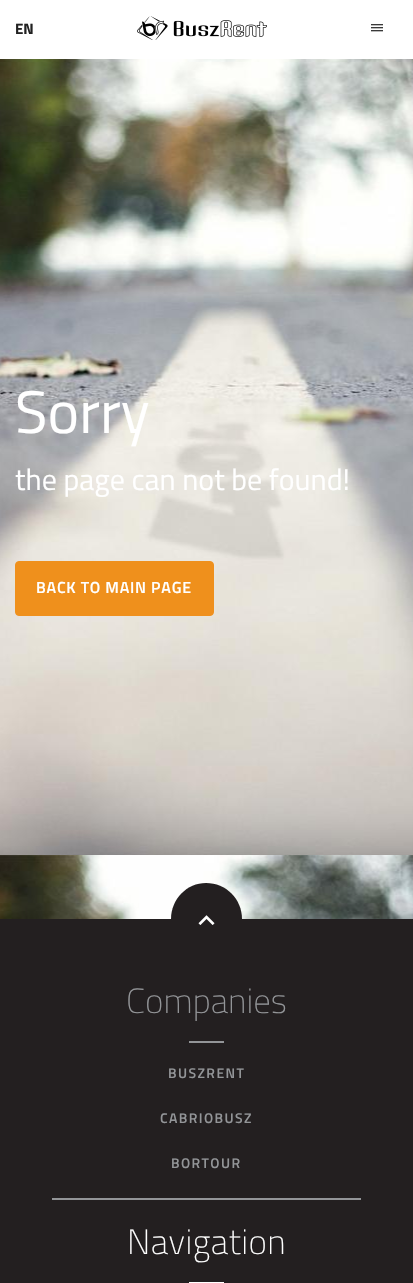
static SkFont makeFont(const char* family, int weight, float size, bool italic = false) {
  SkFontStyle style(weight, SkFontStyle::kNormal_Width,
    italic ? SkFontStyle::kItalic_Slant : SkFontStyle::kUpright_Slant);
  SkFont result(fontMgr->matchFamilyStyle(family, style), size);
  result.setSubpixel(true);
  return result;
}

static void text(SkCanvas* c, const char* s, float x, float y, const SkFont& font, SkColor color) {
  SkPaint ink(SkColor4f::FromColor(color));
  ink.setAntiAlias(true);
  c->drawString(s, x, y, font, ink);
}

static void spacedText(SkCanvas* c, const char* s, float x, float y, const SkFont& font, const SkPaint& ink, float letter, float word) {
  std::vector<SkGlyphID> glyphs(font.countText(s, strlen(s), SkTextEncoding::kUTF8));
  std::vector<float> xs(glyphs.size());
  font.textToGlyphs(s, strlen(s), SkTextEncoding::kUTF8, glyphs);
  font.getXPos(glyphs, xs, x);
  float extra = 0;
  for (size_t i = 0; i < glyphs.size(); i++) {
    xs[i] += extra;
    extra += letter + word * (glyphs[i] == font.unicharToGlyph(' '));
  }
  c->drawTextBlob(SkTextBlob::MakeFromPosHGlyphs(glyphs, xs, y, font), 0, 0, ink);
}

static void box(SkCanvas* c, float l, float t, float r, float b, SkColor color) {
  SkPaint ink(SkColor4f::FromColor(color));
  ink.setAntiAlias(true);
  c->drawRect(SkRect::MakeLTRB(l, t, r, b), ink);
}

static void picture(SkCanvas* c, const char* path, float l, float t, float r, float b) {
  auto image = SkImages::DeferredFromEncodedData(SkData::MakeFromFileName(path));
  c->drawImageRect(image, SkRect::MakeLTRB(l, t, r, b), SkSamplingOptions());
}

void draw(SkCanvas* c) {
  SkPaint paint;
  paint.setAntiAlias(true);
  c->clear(0xff231f20);
  box(c, 0, 0, 413, 59, 0xffffffff);
  SkFont face1 = makeFont("Titillium Web", 700, 15);
  text(c, "EN", 15, 34, face1, 0xff222222);
  picture(c, "img_01.png", 137, 16, 267, 40);
  picture(c, "img_02.png", 371, 24, 383, 32);
  picture(c, "img_03.png", 0, 59, 413, 919);
  SkFont face2 = makeFont("Titillium Web", 400, 60);
  text(c, "Sorry", 15, 433, face2, 0xffffffff);
  SkFont face3 = makeFont("Titillium Web", 400, 30);
  text(c, "the page can not be found!", 15, 490, face3, 0xffffffff);
  paint.setColor(0xffef901c);
  c->drawRoundRect(SkRect::MakeLTRB(15.5f, 561.5f, 213.5f, 615.5f), 3.5f, 3.5f, paint);
  paint.setStyle(SkPaint::kStroke_Style);
  paint.setStrokeWidth(1);
  c->drawRoundRect(SkRect::MakeLTRB(15.5f, 561.5f, 213.5f, 615.5f), 3.5f, 3.5f, paint);
  SkFont face4 = makeFont("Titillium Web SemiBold", 600, 16);
  paint.setStyle(SkPaint::kFill_Style);
  paint.setColor(0xffffffff);
  spacedText(c, "BACK TO MAIN PAGE", 36, 593, face4, paint, 0.75f, 0);
  paint.setColor(0xff231f20);
  c->drawPath(SkPathBuilder().moveTo(206, 954).cubicTo(187, 954, 171, 938, 171, 919).cubicTo(171, 899, 187, 883, 206, 883).cubicTo(226, 883, 242, 899, 242, 919).cubicTo(242, 938, 226, 954, 206, 954).close().detach(), paint);
  picture(c, "img_04.png", 198, 915, 215, 925);
  SkFont face5 = makeFont("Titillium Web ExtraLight", 200, 35);
  text(c, "Companies", 126, 1013, face5, 0xff939598);
  box(c, 189, 1041, 224, 1043, 0xff939598);
  SkFont face6 = makeFont("Titillium Web SemiBold", 600, 14);
  paint.setColor(0xff939598);
  spacedText(c, "BUSZRENT", 168, 1078, face6, paint, 1.4f, 0);
  spacedText(c, "CABRIOBUSZ", 160, 1123, face6, paint, 1.4f, 0);
  spacedText(c, "BORTOUR", 171, 1168, face6, paint, 1.4f, 0);
  box(c, 52, 1198, 361, 1200, 0xff939598);
  paint.setColor(0xffffffff);
  spacedText(c, "Navigation", 127, 1254, face5, paint, 0.5f, 0);
  box(c, 189, 1282, 224, 1283, 0xffffffff);
}
